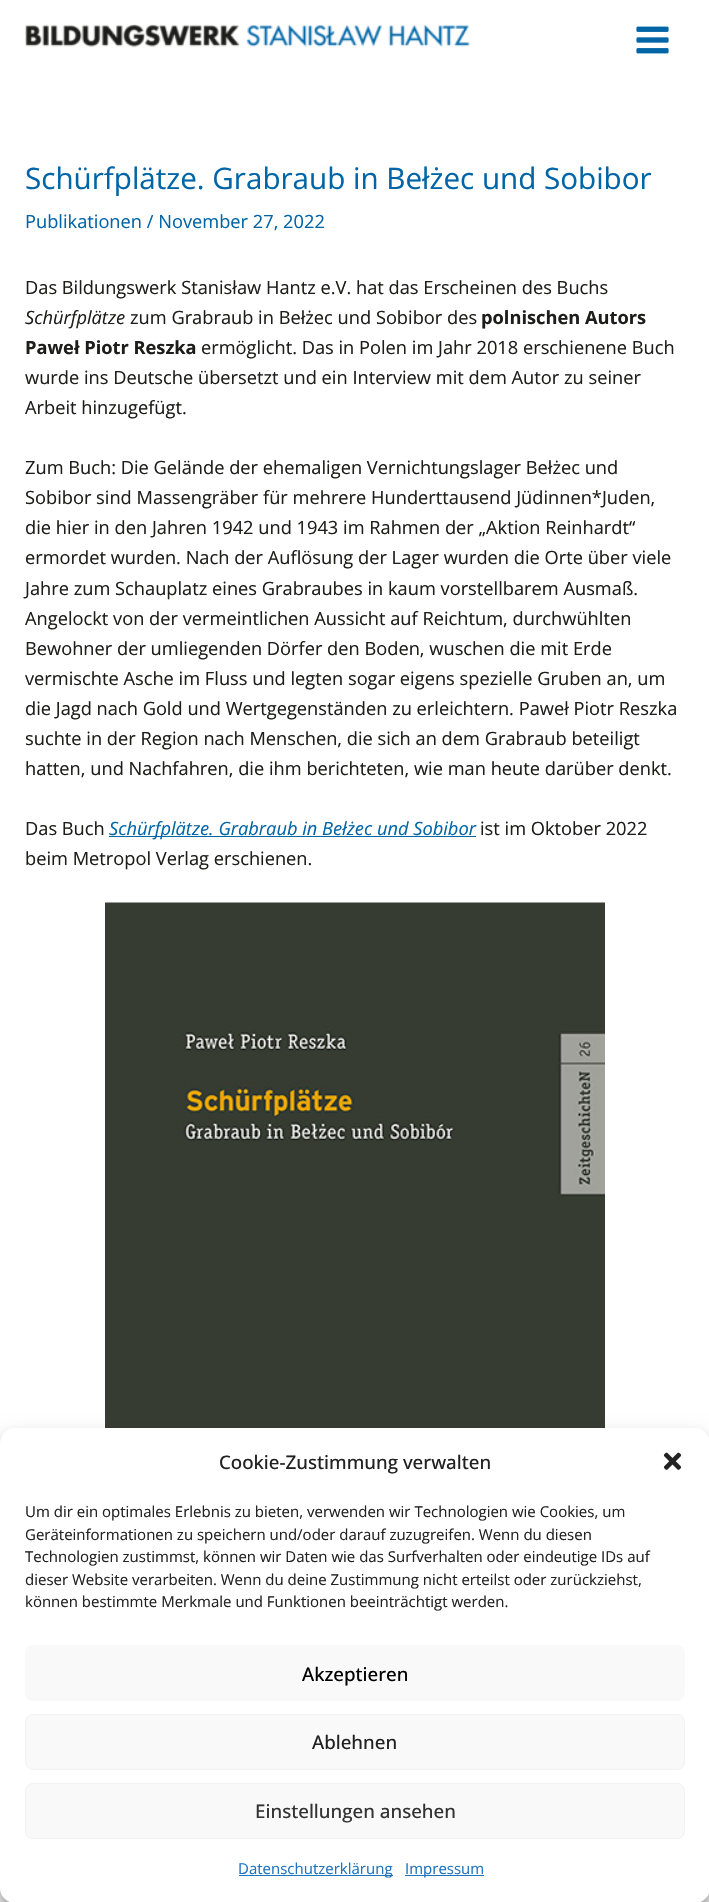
static SkFont makeFont(const char* family, int weight, float size, bool italic = false) {
  SkFontStyle style(weight, SkFontStyle::kNormal_Width,
    italic ? SkFontStyle::kItalic_Slant : SkFontStyle::kUpright_Slant);
  SkFont result(fontMgr->matchFamilyStyle(family, style), size);
  result.setSubpixel(true);
  return result;
}

static void text(SkCanvas* c, const char* s, float x, float y, const SkFont& font, SkColor color) {
  SkPaint ink(SkColor4f::FromColor(color));
  ink.setAntiAlias(true);
  c->drawString(s, x, y, font, ink);
}

static void box(SkCanvas* c, float l, float t, float r, float b, SkColor color) {
  SkPaint ink(SkColor4f::FromColor(color));
  ink.setAntiAlias(true);
  c->drawRect(SkRect::MakeLTRB(l, t, r, b), ink);
}

static void roundBox(SkCanvas* c, float l, float t, float r, float b, float radius, SkColor color) {
  SkPaint ink(SkColor4f::FromColor(color));
  ink.setAntiAlias(true);
  c->drawRoundRect(SkRect::MakeLTRB(l, t, r, b), radius, radius, ink);
}

static void picture(SkCanvas* c, const char* path, float l, float t, float r, float b) {
  auto image = SkImages::DeferredFromEncodedData(SkData::MakeFromFileName(path));
  c->drawImageRect(image, SkRect::MakeLTRB(l, t, r, b), SkSamplingOptions());
}

void draw(SkCanvas* c) {
  SkPaint paint;
  paint.setAntiAlias(true);
  c->clear(0xffffffff);
  picture(c, "img_01.png", 25, 24, 470, 48);
  picture(c, "img_02.png", 636, 26, 669, 54);
  SkFont face1 = makeFont("Open Sans", 400, 29.6f);
  text(c, "Schürfplätze. Grabraub in Bełżec und Sobibor", 25, 189, face1, 0xff0065a6);
  SkFont face2 = makeFont("Open Sans", 400, 18.25f);
  text(c, "Publikationen / November 27, 2022", 25, 228, face2, 0xff0065a6);
  text(c, "Das Bildungswerk Stanisław Hantz e.V. hat das Erscheinen des Buchs", 25, 294, face2, 0xff1d1d1b);
  SkFont face3 = makeFont("Open Sans", 400, 18.25f, true);
  text(c, "Schürfplätze", 25, 324, face3, 0xff1d1d1b);
  text(c, "zum Grabraub in Bełżec und Sobibor des", 130, 324, face2, 0xff1d1d1b);
  SkFont face4 = makeFont("Open Sans", 700, 18.25f);
  text(c, "polnischen Autors", 481, 324, face4, 0xff1d1d1b);
  text(c, "Paweł Piotr Reszka", 25, 354, face4, 0xff1d1d1b);
  text(c, "ermöglicht. Das in Polen im Jahr 2018 erschienene Buch", 201, 354, face2, 0xff1d1d1b);
  text(c, "wurde ins Deutsche übersetzt und ein Interview mit dem Autor zu seiner", 25, 384, face2, 0xff1d1d1b);
  text(c, "Arbeit hinzugefügt.", 25, 414, face2, 0xff1d1d1b);
  text(c, "Zum Buch: Die Gelände der ehemaligen Vernichtungslager Bełżec und", 25, 474, face2, 0xff1d1d1b);
  text(c, "Sobibor sind Massengräber für mehrere Hunderttausend Jüdinnen*Juden,", 25, 504, face2, 0xff1d1d1b);
  text(c, "die hier in den Jahren 1942 und 1943 im Rahmen der „Aktion Reinhardt“", 25, 534, face2, 0xff1d1d1b);
  text(c, "ermordet wurden. Nach der Auflösung der Lager wurden die Orte über viele", 25, 564, face2, 0xff1d1d1b);
  text(c, "Jahre zum Schauplatz eines Grabraubes in kaum vorstellbarem Ausmaß.", 25, 595, face2, 0xff1d1d1b);
  text(c, "Angelockt von der vermeintlichen Aussicht auf Reichtum, durchwühlten", 25, 625, face2, 0xff1d1d1b);
  text(c, "Bewohner der umliegenden Dörfer den Boden, wuschen die mit Erde", 25, 655, face2, 0xff1d1d1b);
  text(c, "vermischte Asche im Fluss und legten sogar eigens spezielle Gruben an, um", 25, 685, face2, 0xff1d1d1b);
  text(c, "die Jagd nach Gold und Wertgegenständen zu erleichtern. Paweł Piotr Reszka", 25, 715, face2, 0xff1d1d1b);
  text(c, "suchte in der Region nach Menschen, die sich an dem Grabraub beteiligt", 25, 745, face2, 0xff1d1d1b);
  text(c, "hatten, und Nachfahren, die ihm berichteten, wie man heute darüber denkt.", 25, 775, face2, 0xff1d1d1b);
  text(c, "Das Buch", 25, 835, face2, 0xff1d1d1b);
  box(c, 109, 836, 476, 837, 0xff0065a6);
  text(c, "Schürfplätze. Grabraub in Bełżec und Sobibor", 109, 835, face3, 0xff0065a6);
  text(c, "ist im Oktober 2022", 480, 835, face2, 0xff1d1d1b);
  text(c, "beim Metropol Verlag erschienen.", 25, 865, face2, 0xff1d1d1b);
  picture(c, "img_03.png", 105, 902, 605, 1428);
  box(c, 0, 1888, 709, 1902, 0xfff9f9f9);
  paint.setColor(0x3b000000);
  paint.setMaskFilter(SkMaskFilter::MakeBlur(kNormal_SkBlurStyle, 4));
  c->drawRoundRect(SkRect::MakeLTRB(0, 1435, 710, 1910), 15, 15, paint);
  paint.setMaskFilter(nullptr);
  paint.setColor(0x30000000);
  paint.setMaskFilter(SkMaskFilter::MakeBlur(kNormal_SkBlurStyle, 12.5f));
  c->drawRoundRect(SkRect::MakeLTRB(0, 1440, 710, 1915), 15, 15, paint);
  paint.setMaskFilter(nullptr);
  roundBox(c, 0, 1428, 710, 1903, 15, 0xffffffff);
  SkFont face5 = makeFont("Open Sans", 500, 18.75f);
  text(c, "Cookie-Zustimmung verwalten", 219, 1469, face5, 0xff222222);
  picture(c, "img_04.png", 663, 1452, 682, 1470);
  SkFont face6 = makeFont("Open Sans", 400, 15);
  text(c, "Um dir ein optimales Erlebnis zu bieten, verwenden wir Technologien wie Cookies, um", 25, 1517, face6, 0xff222222);
  text(c, "Geräteinformationen zu speichern und/oder darauf zuzugreifen. Wenn du diesen", 25, 1540, face6, 0xff222222);
  text(c, "Technologien zustimmst, können wir Daten wie das Surfverhalten oder eindeutige IDs auf", 25, 1562, face6, 0xff222222);
  text(c, "dieser Website verarbeiten. Wenn du deine Zustimmung nicht erteilst oder zurückziehst,", 25, 1585, face6, 0xff222222);
  text(c, "können bestimmte Merkmale und Funktionen beeinträchtigt werden.", 25, 1607, face6, 0xff222222);
  roundBox(c, 25, 1645, 685, 1701, 8, 0xfff9f9f9);
  text(c, "Akzeptieren", 302, 1681, face5, 0xff000000);
  paint.setColor(0xfff9f9f9);
  c->drawRoundRect(SkRect::MakeLTRB(25.5f, 1714.5f, 684.5f, 1769.5f), 7.5f, 7.5f, paint);
  paint.setStyle(SkPaint::kStroke_Style);
  paint.setStrokeWidth(1);
  paint.setColor(0xfff2f2f2);
  c->drawRoundRect(SkRect::MakeLTRB(25.5f, 1714.5f, 684.5f, 1769.5f), 7.5f, 7.5f, paint);
  text(c, "Ablehnen", 312, 1749, face5, 0xff222222);
  paint.setStyle(SkPaint::kFill_Style);
  paint.setColor(0xfff9f9f9);
  c->drawRoundRect(SkRect::MakeLTRB(25.5f, 1783.5f, 684.5f, 1838.5f), 7.5f, 7.5f, paint);
  paint.setStyle(SkPaint::kStroke_Style);
  paint.setColor(0xfff2f2f2);
  c->drawRoundRect(SkRect::MakeLTRB(25.5f, 1783.5f, 684.5f, 1838.5f), 7.5f, 7.5f, paint);
  text(c, "Einstellungen ansehen", 255, 1818, face5, 0xff333333);
  box(c, 239, 1875, 393, 1876, 0xff1e73be);
  text(c, "Datenschutzerklärung", 238, 1874, face6, 0xff1e73be);
  box(c, 405, 1875, 484, 1876, 0xff1e73be);
  text(c, "Impressum", 405, 1874, face6, 0xff1e73be);
}
